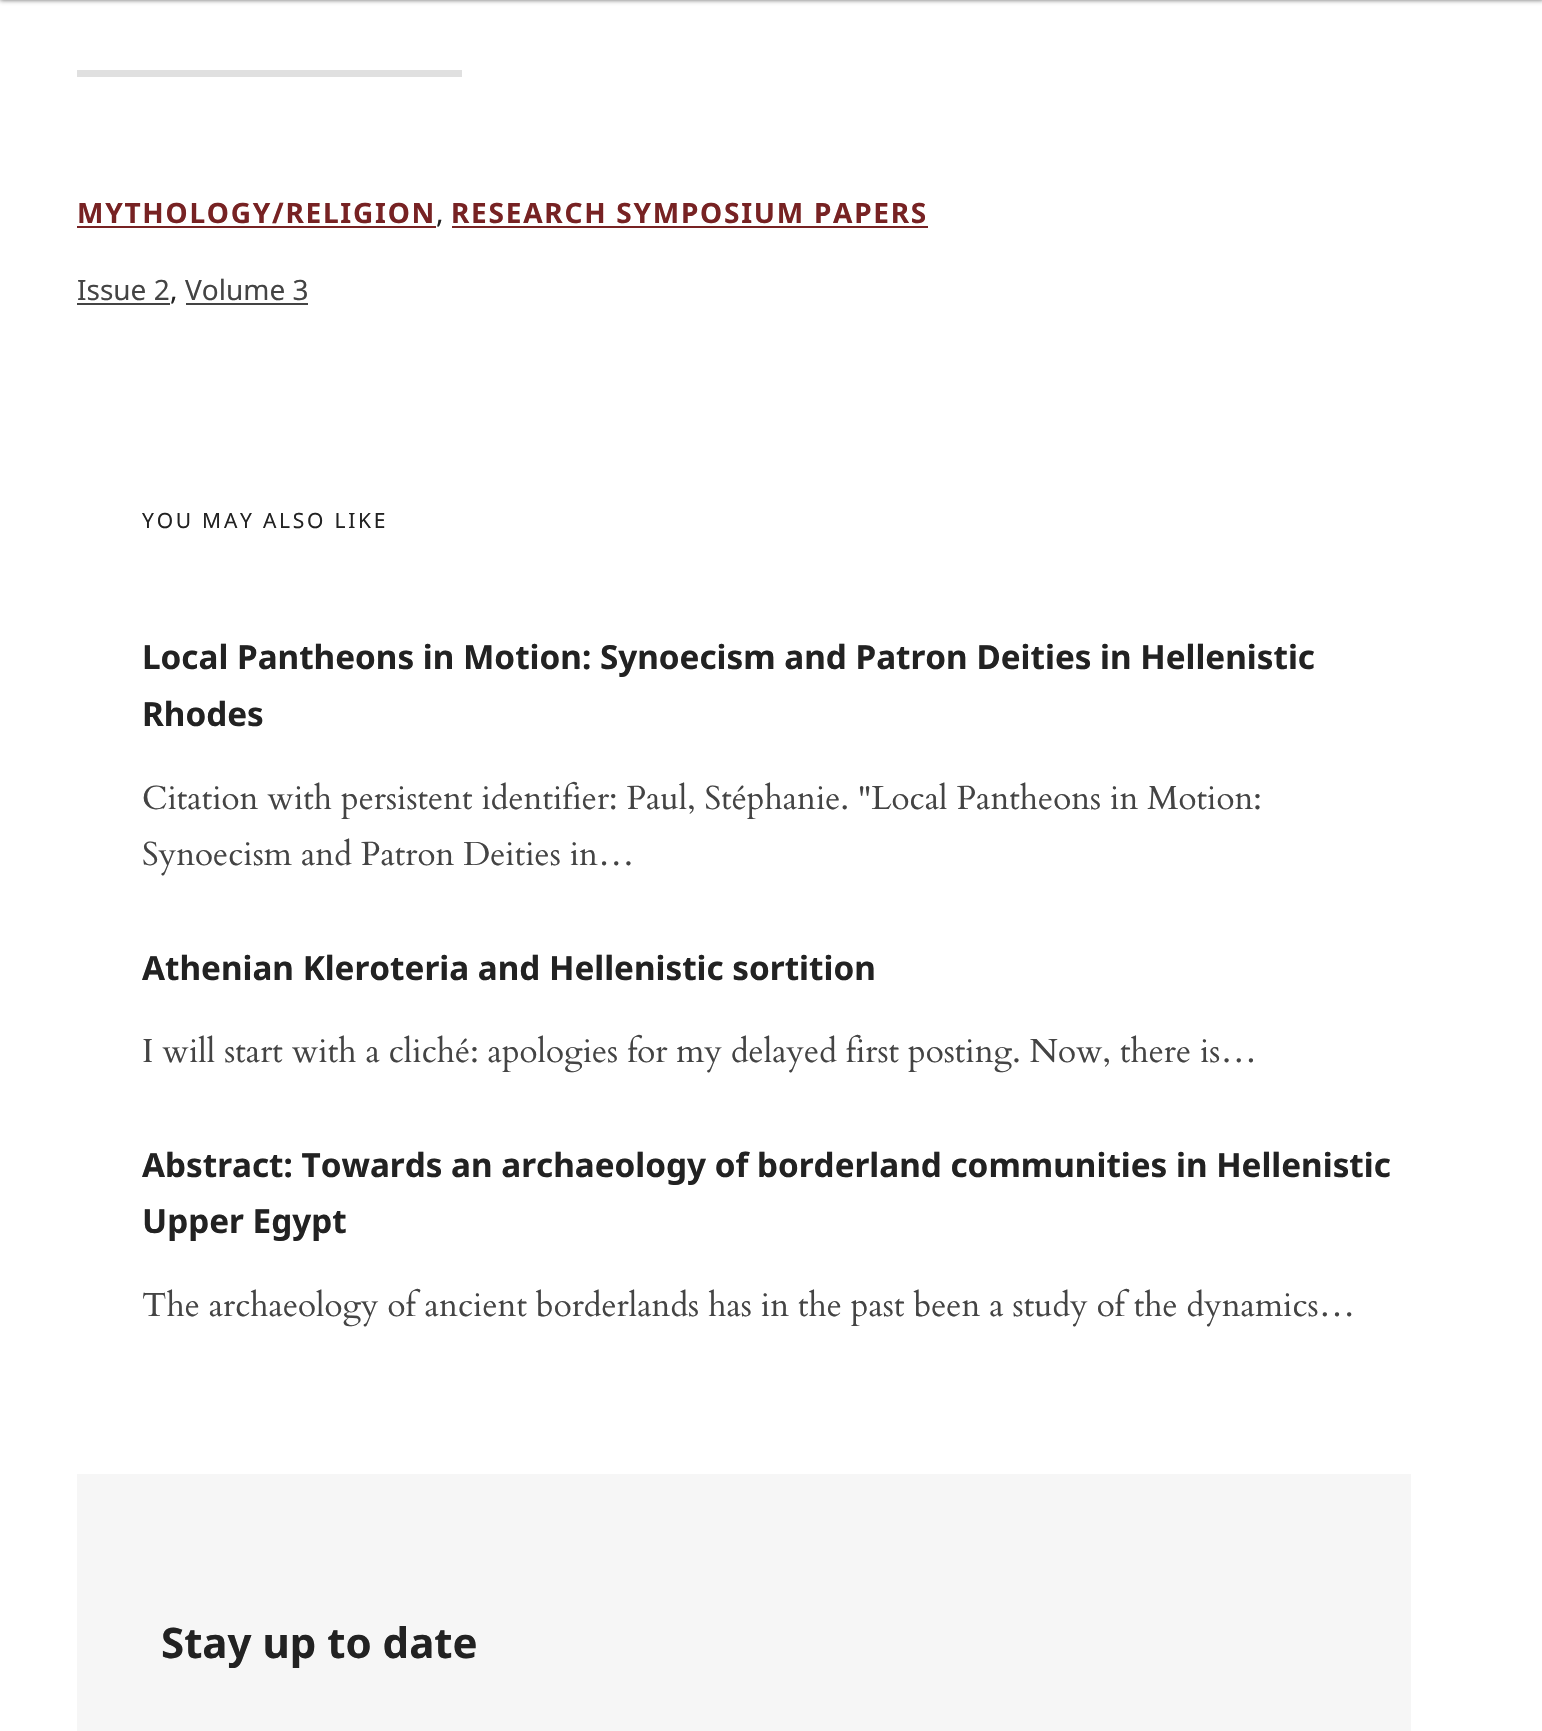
static SkFont makeFont(const char* family, int weight, float size, bool italic = false) {
  SkFontStyle style(weight, SkFontStyle::kNormal_Width,
    italic ? SkFontStyle::kItalic_Slant : SkFontStyle::kUpright_Slant);
  SkFont result(fontMgr->matchFamilyStyle(family, style), size);
  result.setSubpixel(true);
  return result;
}

static void text(SkCanvas* c, const char* s, float x, float y, const SkFont& font, SkColor color) {
  SkPaint ink(SkColor4f::FromColor(color));
  ink.setAntiAlias(true);
  c->drawString(s, x, y, font, ink);
}

static void spacedText(SkCanvas* c, const char* s, float x, float y, const SkFont& font, const SkPaint& ink, float letter, float word) {
  std::vector<SkGlyphID> glyphs(font.countText(s, strlen(s), SkTextEncoding::kUTF8));
  std::vector<float> xs(glyphs.size());
  font.textToGlyphs(s, strlen(s), SkTextEncoding::kUTF8, glyphs);
  font.getXPos(glyphs, xs, x);
  float extra = 0;
  for (size_t i = 0; i < glyphs.size(); i++) {
    xs[i] += extra;
    extra += letter + word * (glyphs[i] == font.unicharToGlyph(' '));
  }
  c->drawTextBlob(SkTextBlob::MakeFromPosHGlyphs(glyphs, xs, y, font), 0, 0, ink);
}

static void box(SkCanvas* c, float l, float t, float r, float b, SkColor color) {
  SkPaint ink(SkColor4f::FromColor(color));
  ink.setAntiAlias(true);
  c->drawRect(SkRect::MakeLTRB(l, t, r, b), ink);
}

void draw(SkCanvas* c) {
  SkPaint paint;
  paint.setAntiAlias(true);
  c->clear(0xffffffff);
  paint.setColor(0x99000000);
  paint.setMaskFilter(SkMaskFilter::MakeBlur(kNormal_SkBlurStyle, 2.5f));
  c->drawRect(SkRect::MakeLTRB(0, -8, 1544, 0), paint);
  paint.setMaskFilter(nullptr);
  box(c, 77, 70, 462, 77, 0xffe0e0e0);
  SkFont face1 = makeFont("Noto Sans", 700, 28);
  paint.setColor(0xff772223);
  spacedText(c, "MYTHOLOGY/RELIGION", 77, 223, face1, paint, 1.75f, 0);
  box(c, 77, 226, 436, 228, 0xff772223);
  SkFont face2 = makeFont("Noto Sans", 400, 28);
  text(c, ",", 436, 223, face2, 0xff222222);
  spacedText(c, "RESEARCH SYMPOSIUM PAPERS", 451, 223, face1, paint, 1.75f, 0);
  box(c, 452, 226, 928, 228, 0xff772223);
  text(c, "Issue 2", 77, 300, face2, 0xff444444);
  box(c, 77, 303, 170, 305, 0xff444444);
  text(c, ",", 170, 300, face2, 0xff222222);
  text(c, "Volume 3", 185, 300, face2, 0xff444444);
  box(c, 186, 303, 308, 305, 0xff444444);
  SkFont face3 = makeFont("Noto Sans", 400, 21);
  paint.setColor(0xff222222);
  spacedText(c, "YOU MAY ALSO LIKE", 142, 528, face3, paint, 2.75f, 0);
  SkFont face4 = makeFont("Noto Sans", 700, 33.25f);
  text(c, "Local Pantheons in Motion: Synoecism and Patron Deities in Hellenistic", 142, 669, face4, 0xff222222);
  text(c, "Rhodes", 142, 726, face4, 0xff222222);
  SkFont face5 = makeFont("Cardo", 400, 33.25f);
  text(c, "Citation with persistent identifier: Paul, Stéphanie. \"Local Pantheons in Motion:", 142, 809, face5, 0xff444444);
  text(c, "Synoecism and Patron Deities in…", 142, 865, face5, 0xff444444);
  text(c, "Athenian Kleroteria and Hellenistic sortition", 142, 980, face4, 0xff222222);
  text(c, "I will start with a cliché: apologies for my delayed first posting. Now, there is…", 142, 1062, face5, 0xff444444);
  text(c, "Abstract: Towards an archaeology of borderland communities in Hellenistic", 142, 1177, face4, 0xff222222);
  text(c, "Upper Egypt", 142, 1233, face4, 0xff222222);
  text(c, "The archaeology of ancient borderlands has in the past been a study of the dynamics…", 142, 1316, face5, 0xff444444);
  box(c, 77, 1474, 1411, 1731, 0xfff6f6f6);
  SkFont face6 = makeFont("Noto Sans", 700, 42);
  text(c, "Stay up to date", 161, 1658, face6, 0xff222222);
}
